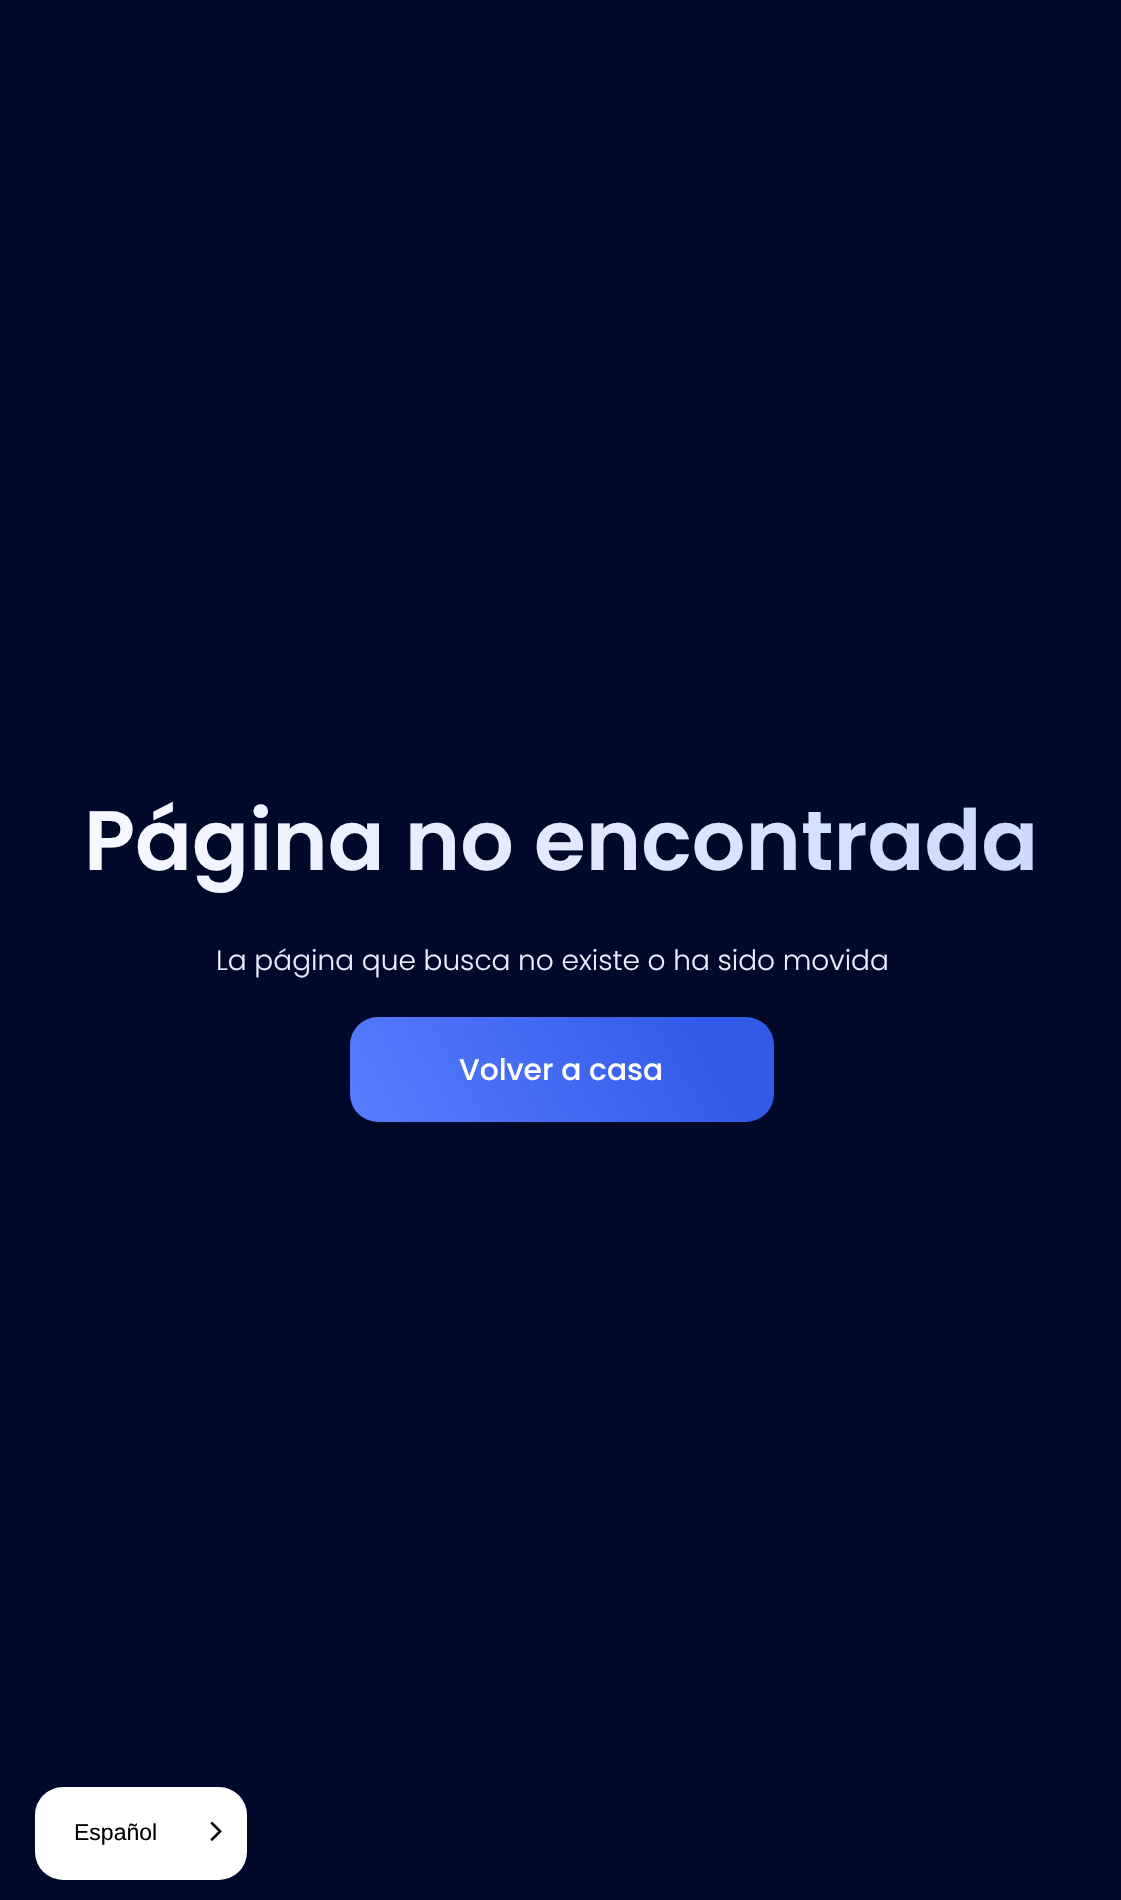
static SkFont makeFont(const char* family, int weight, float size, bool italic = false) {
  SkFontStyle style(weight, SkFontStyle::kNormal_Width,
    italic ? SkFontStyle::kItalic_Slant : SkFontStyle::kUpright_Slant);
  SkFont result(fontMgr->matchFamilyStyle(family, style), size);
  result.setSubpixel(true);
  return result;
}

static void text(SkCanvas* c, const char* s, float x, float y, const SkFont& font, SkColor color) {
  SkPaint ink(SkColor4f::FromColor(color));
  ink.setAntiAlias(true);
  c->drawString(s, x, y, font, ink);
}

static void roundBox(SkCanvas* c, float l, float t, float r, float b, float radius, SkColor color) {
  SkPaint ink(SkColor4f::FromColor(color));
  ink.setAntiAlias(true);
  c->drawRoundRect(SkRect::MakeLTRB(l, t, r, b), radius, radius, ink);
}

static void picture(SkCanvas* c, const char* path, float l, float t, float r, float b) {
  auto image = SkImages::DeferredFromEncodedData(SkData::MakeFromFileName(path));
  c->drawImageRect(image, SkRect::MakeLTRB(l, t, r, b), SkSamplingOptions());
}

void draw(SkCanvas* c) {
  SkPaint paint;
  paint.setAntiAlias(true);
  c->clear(0xff00092a);
  SkFont face1 = makeFont("Poppins", 600, 84);
  {
    const SkColor colors[] = {0xfff7f9ff, 0xffccdaff};
    const float stops[] = {0, 1};
    const SkPoint ends[] = {{84, 842}, {1038, 842}};
    paint.setShader(SkGradientShader::MakeLinear(ends, colors, stops, 2, SkTileMode::kClamp));
    paint.setAlpha(255);
  }
  c->drawString("Página no encontrada", 84, 870, face1, paint);
  SkFont face2 = makeFont("Poppins", 300, 28);
  text(c, "La página que busca no existe o ha sido movida", 216, 970, face2, 0xffeaeefd);
  {
    const SkColor colors[] = {0xff587dff, 0xff315ae7};
    const float stops[] = {0, 0.85f};
    const SkPoint ends[] = {{380, 1174}, {743, 964}};
    paint.setShader(SkGradientShader::MakeLinear(ends, colors, stops, 2, SkTileMode::kClamp));
    paint.setAlpha(255);
  }
  c->drawRoundRect(SkRect::MakeLTRB(350, 1017, 774, 1122), 28, 28, paint);
  SkFont face3 = makeFont("Poppins", 500, 29.75f);
  text(c, "Volver a casa", 459, 1080, face3, 0xffffffff);
  roundBox(c, 35, 1787, 247, 1880, 28, 0xffffffff);
  SkFont face4 = makeFont("Liberation Sans", 400, 23);
  text(c, "Español", 74, 1840, face4, 0xff000000);
  picture(c, "img_01.png", 210, 1821, 222, 1841);
}
